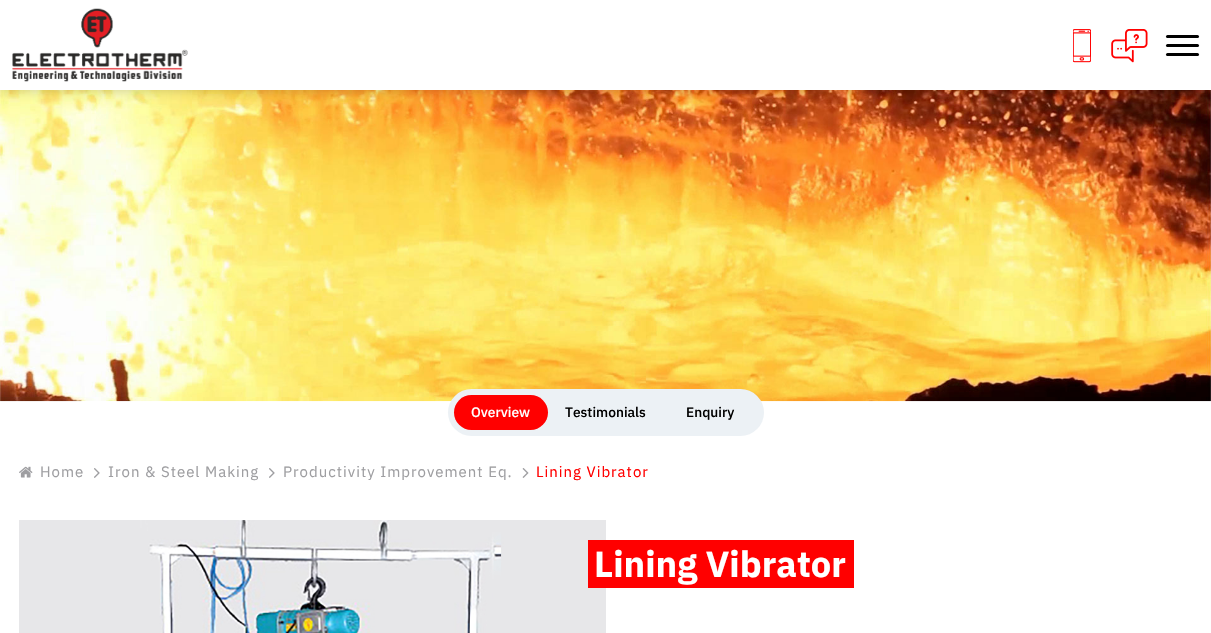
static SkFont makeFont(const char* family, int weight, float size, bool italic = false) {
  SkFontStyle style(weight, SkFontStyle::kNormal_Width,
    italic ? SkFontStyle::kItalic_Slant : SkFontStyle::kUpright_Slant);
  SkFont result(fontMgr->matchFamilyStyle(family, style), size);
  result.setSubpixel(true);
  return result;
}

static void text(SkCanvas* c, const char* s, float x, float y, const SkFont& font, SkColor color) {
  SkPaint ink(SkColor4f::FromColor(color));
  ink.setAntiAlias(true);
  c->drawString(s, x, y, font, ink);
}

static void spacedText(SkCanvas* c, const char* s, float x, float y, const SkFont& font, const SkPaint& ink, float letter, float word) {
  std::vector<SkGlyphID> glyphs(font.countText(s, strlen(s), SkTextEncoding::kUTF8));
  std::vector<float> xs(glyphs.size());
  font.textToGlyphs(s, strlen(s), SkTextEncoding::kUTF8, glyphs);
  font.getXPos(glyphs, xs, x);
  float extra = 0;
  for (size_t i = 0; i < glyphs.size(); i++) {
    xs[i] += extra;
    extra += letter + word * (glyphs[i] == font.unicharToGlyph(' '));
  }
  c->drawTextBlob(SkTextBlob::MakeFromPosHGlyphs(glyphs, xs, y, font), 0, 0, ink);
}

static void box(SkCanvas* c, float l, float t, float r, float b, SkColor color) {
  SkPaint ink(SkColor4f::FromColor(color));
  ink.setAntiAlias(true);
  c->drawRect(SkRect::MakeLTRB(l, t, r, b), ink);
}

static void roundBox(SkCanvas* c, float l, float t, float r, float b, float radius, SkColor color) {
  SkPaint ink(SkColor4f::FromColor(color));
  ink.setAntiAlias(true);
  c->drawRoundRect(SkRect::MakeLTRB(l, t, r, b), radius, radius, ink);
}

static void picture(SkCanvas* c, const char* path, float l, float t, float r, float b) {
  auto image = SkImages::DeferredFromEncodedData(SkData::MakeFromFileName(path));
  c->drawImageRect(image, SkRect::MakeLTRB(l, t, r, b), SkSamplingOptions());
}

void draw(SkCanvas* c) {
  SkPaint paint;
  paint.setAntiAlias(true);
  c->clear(0xffffffff);
  picture(c, "img_05.png", 0, 90, 1211, 402);
  paint.setColor(0x33000000);
  paint.setMaskFilter(SkMaskFilter::MakeBlur(kNormal_SkBlurStyle, 6));
  c->drawRect(SkRect::MakeLTRB(0, 0, 1211, 90), paint);
  paint.setMaskFilter(nullptr);
  box(c, 0, 0, 1211, 90, 0xffffffff);
  picture(c, "img_02.png", 12, 10, 183, 70);
  picture(c, "img_01.png", 12, 8, 188, 82);
  picture(c, "img_03.png", 1073, 29, 1091, 63);
  picture(c, "img_04.png", 1111, 29, 1148, 63);
  roundBox(c, 1166, 44, 1199, 47, 1.5f, 0xff000000);
  roundBox(c, 1166, 35, 1199, 38, 1.5f, 0xff000000);
  roundBox(c, 1166, 53, 1199, 56, 1.5f, 0xff000000);
  roundBox(c, 448, 389, 764, 436, 23.5f, 0xffecf1f5);
  roundBox(c, 454, 395, 548, 430, 17.5f, 0xffff0000);
  SkFont face1 = makeFont("IBM Plex Sans", 500, 13.75f);
  text(c, "Overview", 471, 417, face1, 0xffffffff);
  text(c, "Testimonials", 565, 417, face1, 0xff000000);
  text(c, "Enquiry", 686, 417, face1, 0xff000000);
  picture(c, "img_06.png", 19, 466, 33, 478);
  SkFont face2 = makeFont("IBM Plex Sans", 400, 15);
  paint.setColor(0xff9e9ea1);
  spacedText(c, "Home", 40, 477, face2, paint, 1, 0);
  picture(c, "img_07.png", 94, 468, 100, 478);
  spacedText(c, "Iron & Steel Making", 108, 477, face2, paint, 1, 0);
  picture(c, "img_07.png", 269, 468, 275, 478);
  spacedText(c, "Productivity Improvement Eq.", 283, 477, face2, paint, 1, 0);
  picture(c, "img_08.png", 522, 468, 529, 478);
  paint.setColor(0xffff0000);
  spacedText(c, "Lining Vibrator", 536, 477, face2, paint, 1, 0);
  picture(c, "img_09.png", 19, 520, 606, 633);
  box(c, 588, 540, 854, 588, 0xffff0000);
  SkFont face3 = makeFont("IBM Plex Sans", 700, 36.25f);
  text(c, "Lining Vibrator", 594, 577, face3, 0xffffffff);
}
